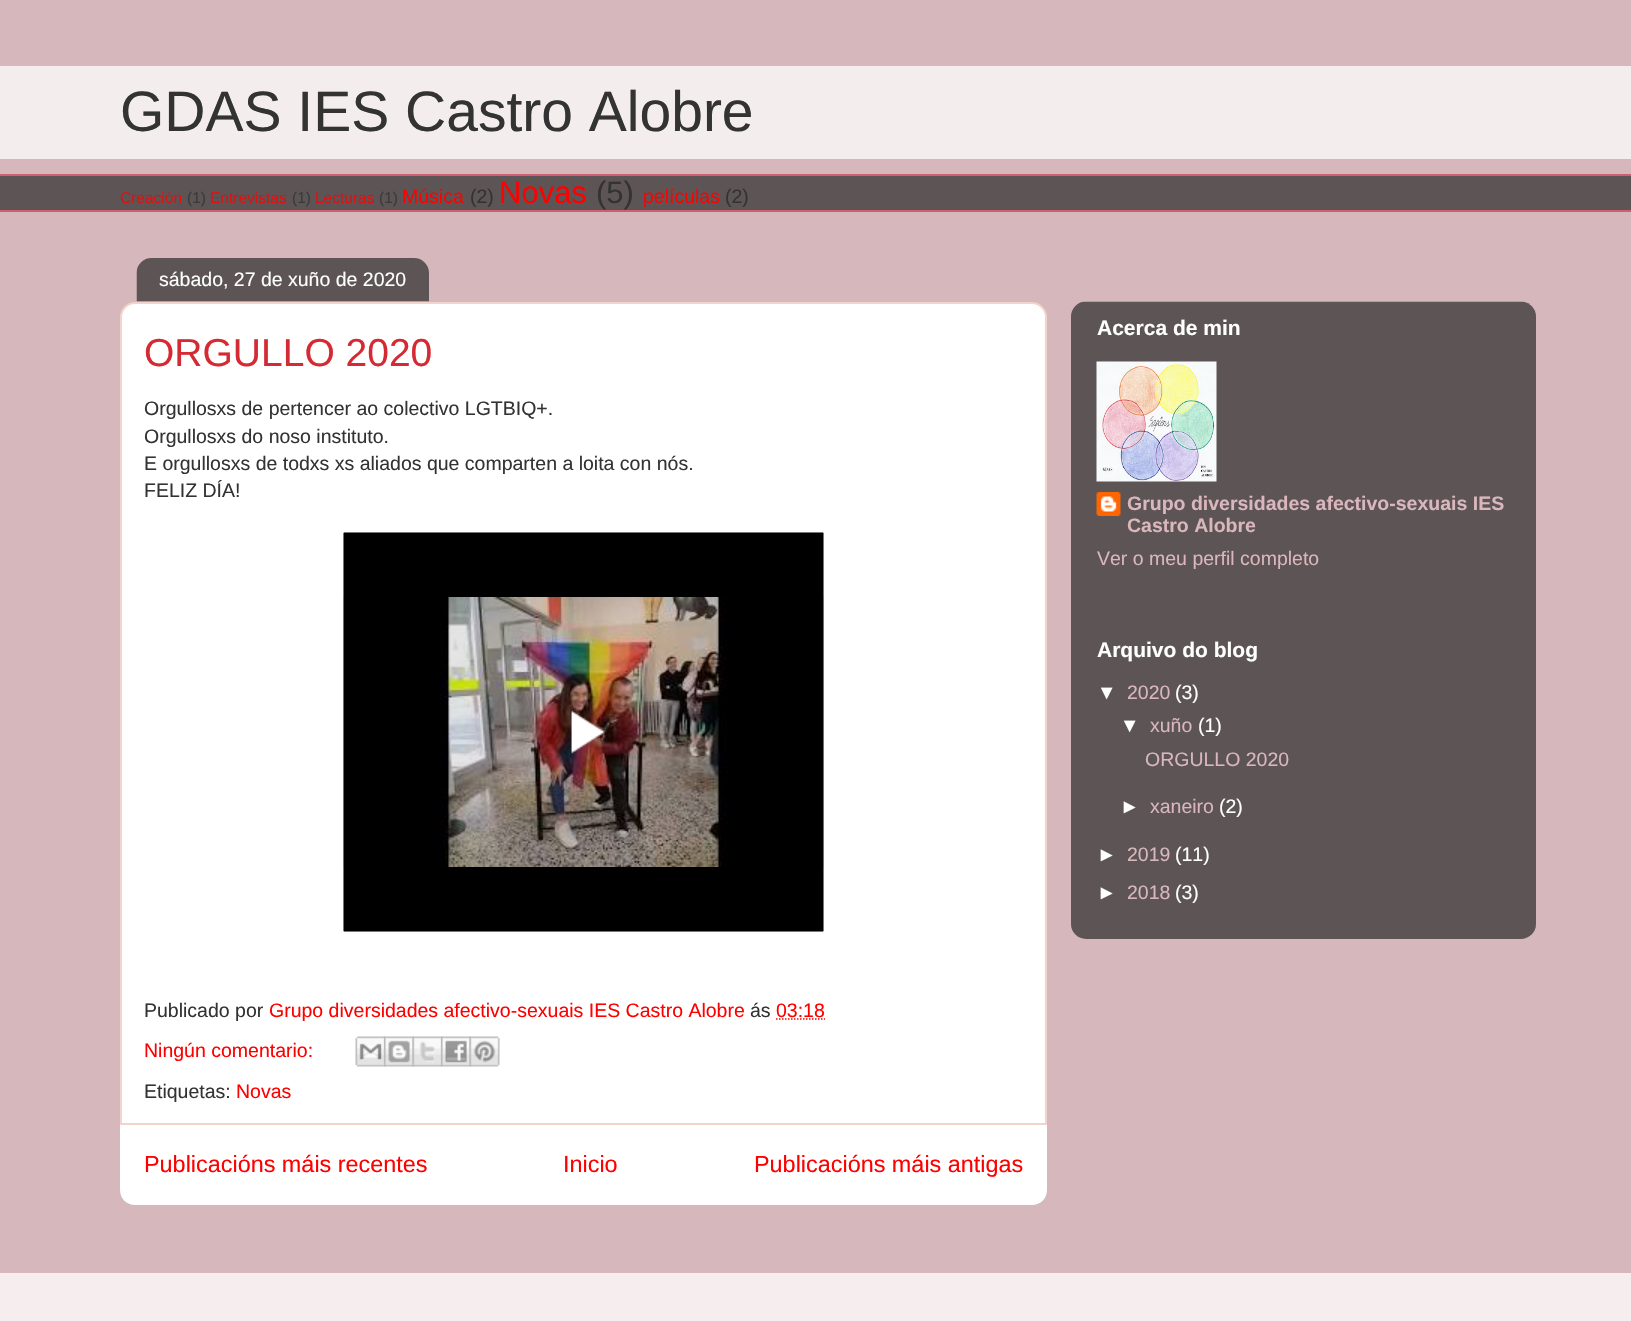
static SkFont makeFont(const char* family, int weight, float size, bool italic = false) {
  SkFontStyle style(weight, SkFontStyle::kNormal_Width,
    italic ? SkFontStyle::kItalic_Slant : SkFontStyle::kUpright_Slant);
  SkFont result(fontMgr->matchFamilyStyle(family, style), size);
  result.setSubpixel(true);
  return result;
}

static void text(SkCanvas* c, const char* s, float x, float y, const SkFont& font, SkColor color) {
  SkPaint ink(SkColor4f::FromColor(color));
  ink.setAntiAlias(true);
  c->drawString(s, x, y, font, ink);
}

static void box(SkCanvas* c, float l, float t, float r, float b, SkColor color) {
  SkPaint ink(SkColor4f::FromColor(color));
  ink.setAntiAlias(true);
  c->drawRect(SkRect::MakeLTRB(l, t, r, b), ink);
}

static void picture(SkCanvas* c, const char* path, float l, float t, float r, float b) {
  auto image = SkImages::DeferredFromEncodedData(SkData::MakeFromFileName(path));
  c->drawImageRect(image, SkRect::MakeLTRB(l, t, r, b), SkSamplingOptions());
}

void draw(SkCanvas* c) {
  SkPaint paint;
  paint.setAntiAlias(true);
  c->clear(0xffd5b7bc);
  box(c, 0, 66, 1631, 159, 0xfff4edee);
  SkFont face1 = makeFont("Liberation Sans", 400, 57);
  text(c, "GDAS IES Castro Alobre", 120, 131, face1, 0xff333333);
  box(c, 0, 176, 1631, 210, 0xff5c5455);
  box(c, 0, 174, 1631, 176, 0xffce5f70);
  SkFont face2 = makeFont("Liberation Sans", 400, 15.5f);
  text(c, "Creación", 120, 203, face2, 0xffde1111);
  text(c, "(1)", 187, 203, face2, 0xff3b3a3a);
  text(c, "Entrevistas", 210, 203, face2, 0xffde1111);
  text(c, "(1)", 292, 203, face2, 0xff3b3a3a);
  text(c, "Lecturas", 315, 203, face2, 0xffde1111);
  text(c, "(1)", 379, 203, face2, 0xff3b3a3a);
  SkFont face3 = makeFont("Liberation Sans", 400, 19.5f);
  text(c, "Música", 402, 203, face3, 0xffff0000);
  text(c, "(2)", 470, 203, face3, 0xff333333);
  SkFont face4 = makeFont("Liberation Sans", 400, 31);
  text(c, "Novas", 499, 203, face4, 0xffff0000);
  text(c, "(5)", 596, 203, face4, 0xff333333);
  text(c, "películas", 643, 203, face3, 0xffff0000);
  text(c, "(2)", 725, 203, face3, 0xff333333);
  box(c, 0, 210, 1631, 212, 0xffce5f70);
  paint.setColor(0xffffffff);
  c->drawPath(SkPathBuilder().moveTo(135, 303).lineTo(1032, 303).cubicTo(1039.5f, 303, 1046, 309.5f, 1046, 317).lineTo(1046, 1124).lineTo(121, 1124).lineTo(121, 317).cubicTo(121, 309.5f, 127.5f, 303, 135, 303).close().detach(), paint);
  paint.setStyle(SkPaint::kStroke_Style);
  paint.setStrokeWidth(2);
  paint.setColor(0xfff4d3cc);
  c->drawPath(SkPathBuilder().moveTo(135, 303).lineTo(1032, 303).cubicTo(1039.5f, 303, 1046, 309.5f, 1046, 317).lineTo(1046, 1124).lineTo(121, 1124).lineTo(121, 317).cubicTo(121, 309.5f, 127.5f, 303, 135, 303).close().detach(), paint);
  picture(c, "img_01.png", 136, 258, 429, 302);
  text(c, "sábado, 27 de xuño de 2020", 159, 286, face3, 0xffffffff);
  SkFont face5 = makeFont("Liberation Sans", 400, 39);
  text(c, "ORGULLO 2020", 144, 366, face5, 0xffd52a33);
  text(c, "Orgullosxs de pertencer ao colectivo LGTBIQ+.", 144, 415, face3, 0xff333333);
  text(c, "Orgullosxs do noso instituto.", 144, 443, face3, 0xff333333);
  text(c, "E orgullosxs de todxs xs aliados que comparten a loita con nós.", 144, 470, face3, 0xff333333);
  text(c, "FELIZ DÍA!", 144, 497, face3, 0xff333333);
  picture(c, "img_02.png", 343, 532, 824, 932);
  text(c, "Publicado por", 144, 1017, face3, 0xff333333);
  text(c, "Grupo diversidades afectivo-sexuais IES Castro Alobre", 269, 1017, face3, 0xffff0000);
  text(c, "ás", 750, 1017, face3, 0xff333333);
  text(c, "03:18", 776, 1017, face3, 0xffff0000);
  paint.setStrokeWidth(1.5f);
  paint.setColor(0xffff0000);
  paint.setPathEffect(SkDashPathEffect::Make({{1.5f, 1.5f}}, 0));
  c->drawPath(SkPathBuilder().moveTo(776, 1019).lineTo(825, 1019).detach(), paint);
  paint.setPathEffect(nullptr);
  text(c, "Ningún comentario:", 144, 1057, face3, 0xffff0000);
  picture(c, "img_03.png", 355, 1036, 386, 1067);
  picture(c, "img_04.png", 384, 1036, 414, 1067);
  picture(c, "img_05.png", 412, 1036, 443, 1067);
  picture(c, "img_06.png", 441, 1036, 471, 1067);
  picture(c, "img_07.png", 469, 1036, 500, 1067);
  text(c, "Etiquetas:", 144, 1098, face3, 0xff333333);
  text(c, "Novas", 236, 1098, face3, 0xffff0000);
  paint.setStyle(SkPaint::kFill_Style);
  paint.setColor(0xffffffff);
  c->drawPath(SkPathBuilder().moveTo(120, 1125).lineTo(1047, 1125).lineTo(1047, 1190).cubicTo(1047, 1198.5f, 1040.5f, 1205, 1032, 1205).lineTo(135, 1205).cubicTo(126.5f, 1205, 120, 1198.5f, 120, 1190).close().detach(), paint);
  SkFont face6 = makeFont("Liberation Sans", 400, 23.4f);
  text(c, "Publicacións máis recentes", 144, 1172, face6, 0xffff0000);
  text(c, "Inicio", 563, 1172, face6, 0xffff0000);
  text(c, "Publicacións máis antigas", 754, 1172, face6, 0xffff0000);
  picture(c, "img_08.png", 1071, 301, 1536, 939);
  SkFont face7 = makeFont("Liberation Sans", 700, 21);
  text(c, "Acerca de min", 1097, 335, face7, 0xffffffff);
  picture(c, "img_09.png", 1096, 361, 1217, 482);
  picture(c, "img_10.png", 1096, 492, 1121, 516);
  SkFont face8 = makeFont("Liberation Sans", 700, 19.5f);
  text(c, "Grupo diversidades afectivo-sexuais IES", 1127, 510, face8, 0xffdab7bc);
  text(c, "Castro Alobre", 1127, 532, face8, 0xffdab7bc);
  text(c, "Ver o meu perfil completo", 1097, 565, face3, 0xffdab7bc);
  text(c, "Arquivo do blog", 1097, 657, face7, 0xffffffff);
  text(c, "▼", 1097, 699, face3, 0xffffffff);
  text(c, "2020", 1127, 699, face3, 0xffdab7bc);
  text(c, "(3)", 1175, 699, face3, 0xffffffff);
  text(c, "▼", 1120, 732, face3, 0xffffffff);
  text(c, "xuño", 1150, 732, face3, 0xffdab7bc);
  text(c, "(1)", 1198, 732, face3, 0xffffffff);
  text(c, "ORGULLO 2020", 1145, 766, face3, 0xffdab7bc);
  text(c, "►", 1120, 813, face3, 0xffffffff);
  text(c, "xaneiro", 1150, 813, face3, 0xffdab7bc);
  text(c, "(2)", 1219, 813, face3, 0xffffffff);
  text(c, "►", 1097, 861, face3, 0xffffffff);
  text(c, "2019", 1127, 861, face3, 0xffdab7bc);
  text(c, "(11)", 1175, 861, face3, 0xffffffff);
  text(c, "►", 1097, 899, face3, 0xffffffff);
  text(c, "2018", 1127, 899, face3, 0xffdab7bc);
  text(c, "(3)", 1175, 899, face3, 0xffffffff);
  box(c, 0, 1273, 1631, 1321, 0xfff5edee);
}
